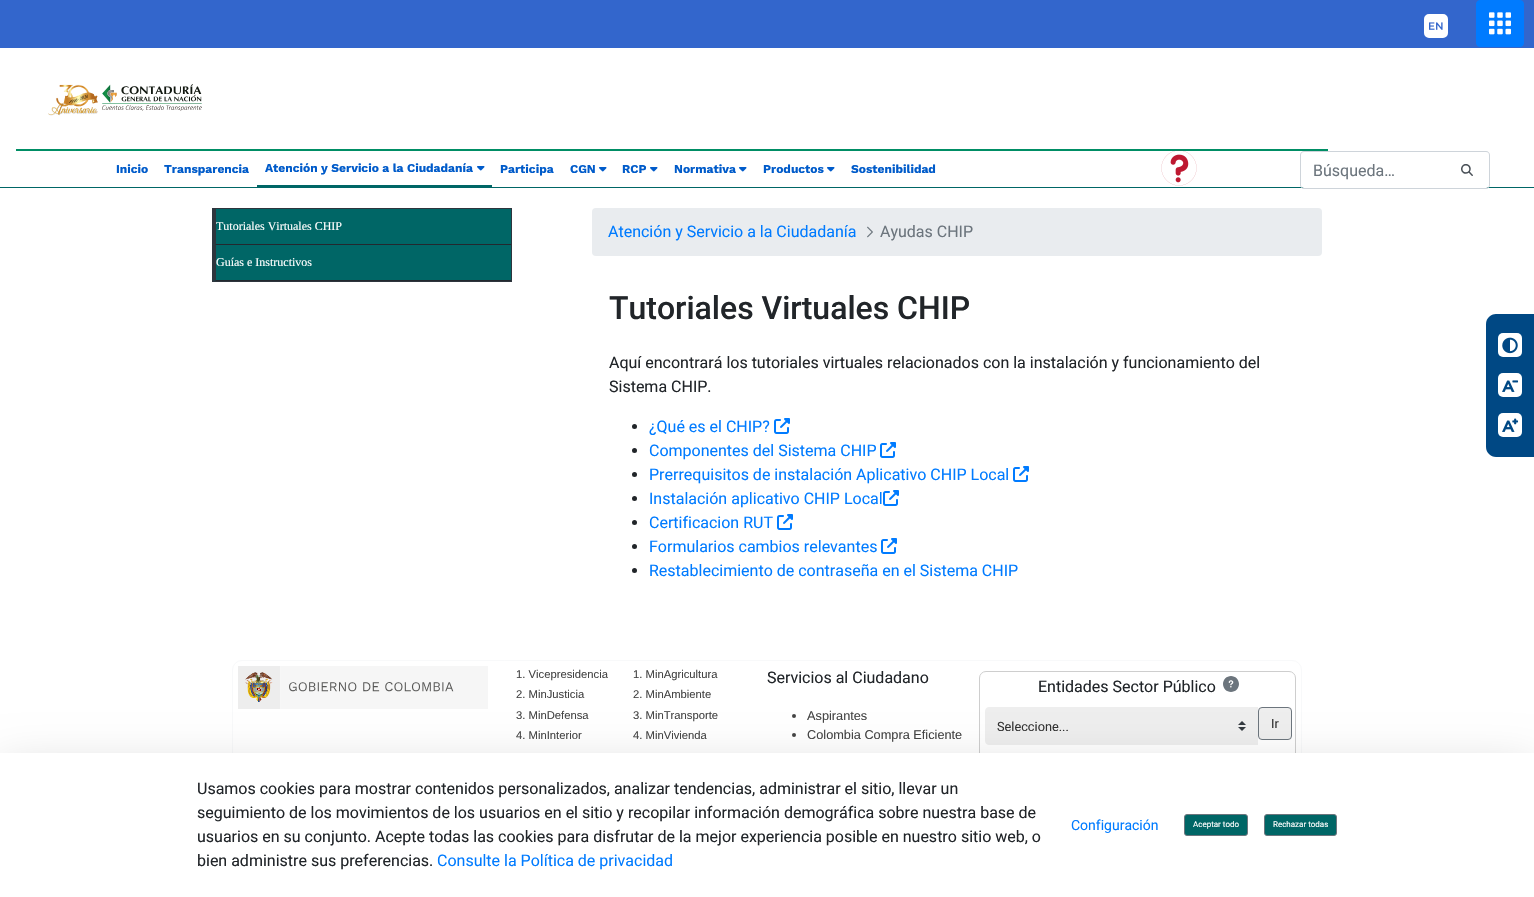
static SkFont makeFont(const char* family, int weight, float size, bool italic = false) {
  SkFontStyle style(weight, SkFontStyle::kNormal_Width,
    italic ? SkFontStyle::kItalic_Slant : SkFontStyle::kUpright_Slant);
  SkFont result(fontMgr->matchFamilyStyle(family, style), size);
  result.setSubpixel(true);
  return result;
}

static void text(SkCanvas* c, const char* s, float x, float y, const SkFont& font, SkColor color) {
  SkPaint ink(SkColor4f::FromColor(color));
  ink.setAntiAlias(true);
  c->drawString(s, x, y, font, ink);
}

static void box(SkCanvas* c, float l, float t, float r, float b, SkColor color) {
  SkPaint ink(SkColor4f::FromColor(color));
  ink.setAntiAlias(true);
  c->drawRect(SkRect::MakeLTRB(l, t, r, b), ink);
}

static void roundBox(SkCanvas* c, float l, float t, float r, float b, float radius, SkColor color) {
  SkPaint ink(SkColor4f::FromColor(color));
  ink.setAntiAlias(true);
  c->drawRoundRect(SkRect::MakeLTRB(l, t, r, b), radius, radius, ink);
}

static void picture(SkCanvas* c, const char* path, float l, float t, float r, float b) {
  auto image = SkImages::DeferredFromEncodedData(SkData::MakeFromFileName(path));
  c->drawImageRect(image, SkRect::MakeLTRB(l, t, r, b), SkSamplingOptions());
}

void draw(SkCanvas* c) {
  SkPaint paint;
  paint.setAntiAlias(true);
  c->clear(0xffffffff);
  box(c, 0, 0, 1534, 48, 0xff3366cc);
  paint.setColor(0xffffffff);
  c->drawRoundRect(SkRect::MakeLTRB(1425, 15, 1447, 37), 4, 4, paint);
  paint.setStyle(SkPaint::kStroke_Style);
  paint.setStrokeWidth(2);
  c->drawRoundRect(SkRect::MakeLTRB(1425, 15, 1447, 37), 4, 4, paint);
  picture(c, "img_01.png", 1429, 22, 1443, 30);
  paint.setStyle(SkPaint::kFill_Style);
  paint.setColor(0xff007bff);
  c->drawRoundRect(SkRect::MakeLTRB(1476.5f, 0.5f, 1523.5f, 46.5f), 3.5f, 3.5f, paint);
  paint.setStyle(SkPaint::kStroke_Style);
  paint.setStrokeWidth(1);
  c->drawRoundRect(SkRect::MakeLTRB(1476.5f, 0.5f, 1523.5f, 46.5f), 3.5f, 3.5f, paint);
  picture(c, "img_02.png", 1489, 12, 1511, 35);
  box(c, 0, 187, 1534, 188, 0xff006666);
  picture(c, "img_03.png", 48, 84, 202, 116);
  box(c, 16, 149, 1328, 151, 0xff008e65);
  SkFont face1 = makeFont("Work Sans", 700, 12);
  text(c, "Inicio", 116, 173, face1, 0xff005bca);
  text(c, "Transparencia", 164, 173, face1, 0xff005bca);
  box(c, 257, 185, 492, 187, 0xff006666);
  text(c, "Atención y Servicio a la Ciudadanía", 265, 172, face1, 0xff005bca);
  picture(c, "img_04.png", 477, 166, 485, 171);
  text(c, "Participa", 500, 173, face1, 0xff005bca);
  text(c, "CGN", 570, 173, face1, 0xff005bca);
  picture(c, "img_04.png", 599, 167, 607, 172);
  text(c, "RCP", 622, 173, face1, 0xff005bca);
  picture(c, "img_04.png", 650, 167, 658, 172);
  text(c, "Normativa", 674, 173, face1, 0xff005bca);
  picture(c, "img_04.png", 739, 167, 747, 172);
  text(c, "Productos", 763, 173, face1, 0xff005bca);
  picture(c, "img_04.png", 827, 167, 835, 172);
  text(c, "Sostenibilidad", 851, 173, face1, 0xff005bca);
  picture(c, "img_05.png", 1161, 150, 1197, 186);
  paint.setStyle(SkPaint::kFill_Style);
  paint.setColor(0xffffffff);
  c->drawPath(SkPathBuilder().moveTo(1304, 152).lineTo(1445, 152).lineTo(1445, 188).lineTo(1304, 188).cubicTo(1302.5f, 188, 1301, 186.5f, 1301, 185).lineTo(1301, 155).cubicTo(1301, 153.5f, 1302.5f, 152, 1304, 152).close().detach(), paint);
  paint.setColor(0xffced4da);
  c->drawPath(SkPathBuilder(SkPathFillType::kEvenOdd).moveTo(1304, 151).lineTo(1445, 151).lineTo(1445, 189).lineTo(1304, 189).cubicTo(1302, 189, 1300, 187, 1300, 185).lineTo(1300, 155).cubicTo(1300, 153, 1302, 151, 1304, 151).close().moveTo(1304, 152).lineTo(1445, 152).lineTo(1445, 188).lineTo(1304, 188).cubicTo(1302, 188, 1301, 187, 1301, 185).lineTo(1301, 155).cubicTo(1301, 153, 1302, 152, 1304, 152).close().detach(), paint);
  SkFont face2 = makeFont("Roboto", 400, 16);
  text(c, "Búsqueda…", 1313, 176, face2, 0xff6c757d);
  paint.setColor(0xffffffff);
  c->drawPath(SkPathBuilder().moveTo(1445, 152).lineTo(1486, 152).cubicTo(1487.5f, 152, 1489, 153.5f, 1489, 155).lineTo(1489, 185).cubicTo(1489, 186.5f, 1487.5f, 188, 1486, 188).lineTo(1445, 188).close().detach(), paint);
  paint.setColor(0xffced4da);
  c->drawPath(SkPathBuilder(SkPathFillType::kEvenOdd).moveTo(1445, 151).lineTo(1486, 151).cubicTo(1488, 151, 1490, 153, 1490, 155).lineTo(1490, 185).cubicTo(1490, 187, 1488, 189, 1486, 189).lineTo(1445, 189).close().moveTo(1445, 152).lineTo(1486, 152).cubicTo(1488, 152, 1489, 153, 1489, 155).lineTo(1489, 185).cubicTo(1489, 187, 1488, 188, 1486, 188).lineTo(1445, 188).close().detach(), paint);
  picture(c, "img_06.png", 1461, 164, 1473, 176);
  paint.setColor(0xff006666);
  c->drawRect(SkRect::MakeLTRB(212.5f, 208.5f, 511.5f, 281.5f), paint);
  paint.setStyle(SkPaint::kStroke_Style);
  paint.setColor(0xff2e353d);
  c->drawRect(SkRect::MakeLTRB(212.5f, 208.5f, 511.5f, 281.5f), paint);
  paint.setStyle(SkPaint::kFill_Style);
  paint.setColor(0xff23282e);
  c->drawPath(SkPathBuilder().moveTo(511, 245).lineTo(213, 245).lineTo(216, 244).lineTo(511, 244).close().detach(), paint);
  paint.setColor(0xff2e353d);
  c->drawPath(SkPathBuilder().moveTo(213, 245).lineTo(213, 209).lineTo(216, 209).lineTo(216, 244).close().detach(), paint);
  SkFont face3 = makeFont("Liberation Serif", 400, 12);
  text(c, "Tutoriales Virtuales CHIP", 216, 230, face3, 0xffffffff);
  paint.setColor(0xff23282e);
  c->drawPath(SkPathBuilder().moveTo(511, 281).lineTo(213, 281).lineTo(216, 280).lineTo(511, 280).close().detach(), paint);
  paint.setColor(0xff2e353d);
  c->drawPath(SkPathBuilder().moveTo(213, 281).lineTo(213, 245).lineTo(216, 245).lineTo(216, 280).close().detach(), paint);
  text(c, "Guías e Instructivos", 216, 266, face3, 0xffffffff);
  roundBox(c, 592, 208, 1322, 256, 4, 0xffe9ecef);
  text(c, "Atención y Servicio a la Ciudadanía", 608, 237, face2, 0xff007bff);
  picture(c, "img_07.png", 867, 226, 873, 238);
  text(c, "Ayudas CHIP", 880, 237, face2, 0xff6c757d);
  SkFont face4 = makeFont("Roboto", 500, 32);
  text(c, "Tutoriales Virtuales CHIP", 609, 319, face4, 0xff212529);
  text(c, "Aquí encontrará los tutoriales virtuales relacionados con la instalación y funcionamiento del", 609, 368, face2, 0xff212529);
  text(c, "Sistema CHIP.", 609, 392, face2, 0xff212529);
  paint.setColor(0xff212529);
  c->drawCircle(634.5f, 426.5f, 2.5f, paint);
  text(c, "¿Qué es el CHIP?", 649, 432, face2, 0xff007bff);
  picture(c, "img_08.png", 774, 418, 790, 434);
  c->drawCircle(634.5f, 450.5f, 2.5f, paint);
  text(c, "Componentes del Sistema CHIP", 649, 456, face2, 0xff007bff);
  picture(c, "img_08.png", 880, 442, 896, 458);
  c->drawCircle(634.5f, 474.5f, 2.5f, paint);
  text(c, "Prerrequisitos de instalación Aplicativo CHIP Local", 649, 480, face2, 0xff007bff);
  picture(c, "img_08.png", 1013, 466, 1029, 482);
  c->drawCircle(634.5f, 498.5f, 2.5f, paint);
  text(c, "Instalación aplicativo CHIP Local", 649, 504, face2, 0xff007bff);
  picture(c, "img_08.png", 883, 490, 899, 506);
  c->drawCircle(634.5f, 522.5f, 2.5f, paint);
  text(c, "Certificacion RUT", 649, 528, face2, 0xff007bff);
  picture(c, "img_08.png", 777, 514, 793, 530);
  c->drawCircle(634.5f, 546.5f, 2.5f, paint);
  text(c, "Formularios cambios relevantes", 649, 552, face2, 0xff007bff);
  picture(c, "img_08.png", 881, 538, 897, 554);
  c->drawCircle(634.5f, 570.5f, 2.5f, paint);
  text(c, "Restablecimiento de contraseña en el Sistema CHIP", 649, 576, face2, 0xff007bff);
  paint.setColor(0xff004884);
  c->drawPath(SkPathBuilder().moveTo(1496, 314).lineTo(1534, 314).lineTo(1534, 457).lineTo(1496, 457).cubicTo(1490.5f, 457, 1486, 452.5f, 1486, 447).lineTo(1486, 324).cubicTo(1486, 318.5f, 1490.5f, 314, 1496, 314).close().detach(), paint);
  roundBox(c, 1498, 333, 1522, 357, 5, 0xffffffff);
  picture(c, "img_09.png", 1502, 337, 1518, 354);
  roundBox(c, 1498, 373, 1522, 397, 5, 0xffffffff);
  picture(c, "img_10.png", 1502, 380, 1519, 392);
  roundBox(c, 1498, 413, 1522, 437, 5, 0xffffffff);
  picture(c, "img_11.png", 1502, 418, 1519, 432);
  paint.setStyle(SkPaint::kStroke_Style);
  paint.setColor(0xfff8f9fa);
  c->drawRoundRect(SkRect::MakeLTRB(232.5f, 660.5f, 1301.5f, 889.5f), 9.5f, 9.5f, paint);
  picture(c, "img_12.png", 238, 666, 488, 709);
  SkFont face5 = makeFont("Liberation Sans", 400, 11.25f);
  text(c, "1. Vicepresidencia", 516, 678, face5, 0xff444444);
  text(c, "2. MinJusticia", 516, 698, face5, 0xff444444);
  text(c, "3. MinDefensa", 516, 719, face5, 0xff444444);
  text(c, "4. MinInterior", 516, 739, face5, 0xff444444);
  text(c, "1. MinAgricultura", 633, 678, face5, 0xff444444);
  text(c, "2. MinAmbiente", 633, 698, face5, 0xff444444);
  text(c, "3. MinTransporte", 633, 719, face5, 0xff444444);
  text(c, "4. MinVivienda", 633, 739, face5, 0xff444444);
  text(c, "Servicios al Ciudadano", 767, 683, face2, 0xff212529);
  paint.setStyle(SkPaint::kFill_Style);
  paint.setColor(0xff444444);
  c->drawCircle(794, 716, 2, paint);
  SkFont face6 = makeFont("Liberation Sans", 400, 12.75f);
  text(c, "Aspirantes", 807, 720, face6, 0xff444444);
  c->drawCircle(794, 735, 2, paint);
  text(c, "Colombia Compra Eficiente", 807, 739, face6, 0xff444444);
  paint.setStyle(SkPaint::kStroke_Style);
  paint.setColor(0xffcecece);
  c->drawRoundRect(SkRect::MakeLTRB(979.5f, 671.5f, 1295.5f, 766.5f), 6.5f, 6.5f, paint);
  text(c, "Entidades Sector Público", 1038, 692, face2, 0xff212529);
  picture(c, "img_13.png", 1223, 676, 1239, 692);
  paint.setStyle(SkPaint::kFill_Style);
  paint.setColor(0xffeeeeee);
  c->drawPath(SkPathBuilder().moveTo(989, 707).lineTo(1258, 707).lineTo(1258, 745).lineTo(989, 745).cubicTo(987, 745, 985, 743, 985, 741).lineTo(985, 711).cubicTo(985, 709, 987, 707, 989, 707).close().detach(), paint);
  picture(c, "img_14.png", 1238, 721, 1246, 731);
  SkFont face7 = makeFont("Roboto", 400, 12.75f);
  text(c, "Seleccione...", 997, 731, face7, 0xff333333);
  c->drawRoundRect(SkRect::MakeLTRB(1258.5f, 707.5f, 1291.5f, 739.5f), 3.5f, 3.5f, paint);
  paint.setStyle(SkPaint::kStroke_Style);
  paint.setColor(0xff6c757d);
  c->drawRoundRect(SkRect::MakeLTRB(1258.5f, 707.5f, 1291.5f, 739.5f), 3.5f, 3.5f, paint);
  text(c, "Ir", 1271, 728, face7, 0xff333333);
  paint.setStyle(SkPaint::kFill_Style);
  paint.setColor(0x2e000000);
  paint.setMaskFilter(SkMaskFilter::MakeBlur(kNormal_SkBlurStyle, 24));
  c->drawRect(SkRect::MakeLTRB(0, 769, 1534, 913), paint);
  paint.setMaskFilter(nullptr);
  box(c, 0, 753, 1534, 897, 0xffffffff);
  text(c, "Usamos cookies para mostrar contenidos personalizados, analizar tendencias, administrar el sitio, llevar un", 197, 794, face2, 0xff212529);
  text(c, "seguimiento de los movimientos de los usuarios en el sitio y recopilar información demográfica sobre nuestra base de", 197, 818, face2, 0xff212529);
  text(c, "usuarios en su conjunto. Acepte todas las cookies para disfrutar de la mejor experiencia posible en nuestro sitio web, o", 197, 842, face2, 0xff212529);
  text(c, "bien administre sus preferencias.", 197, 866, face2, 0xff212529);
  text(c, "Consulte la Política de privacidad", 437, 866, face2, 0xff007bff);
  SkFont face8 = makeFont("Roboto", 400, 14);
  text(c, "Configuración", 1071, 830, face8, 0xff007bff);
  paint.setColor(0xff006666);
  c->drawRoundRect(SkRect::MakeLTRB(1184.5f, 814.5f, 1247.5f, 835.5f), 2.5f, 2.5f, paint);
  paint.setStyle(SkPaint::kStroke_Style);
  paint.setColor(0xff6c757d);
  c->drawRoundRect(SkRect::MakeLTRB(1184.5f, 814.5f, 1247.5f, 835.5f), 2.5f, 2.5f, paint);
  SkFont face9 = makeFont("Roboto", 400, 8);
  text(c, "Aceptar todo", 1193, 827, face9, 0xffffffff);
  paint.setStyle(SkPaint::kFill_Style);
  paint.setColor(0xff006666);
  c->drawRoundRect(SkRect::MakeLTRB(1264.5f, 814.5f, 1336.5f, 835.5f), 2.5f, 2.5f, paint);
  paint.setStyle(SkPaint::kStroke_Style);
  paint.setColor(0xff6c757d);
  c->drawRoundRect(SkRect::MakeLTRB(1264.5f, 814.5f, 1336.5f, 835.5f), 2.5f, 2.5f, paint);
  text(c, "Rechazar todas", 1273, 827, face9, 0xffffffff);
}
